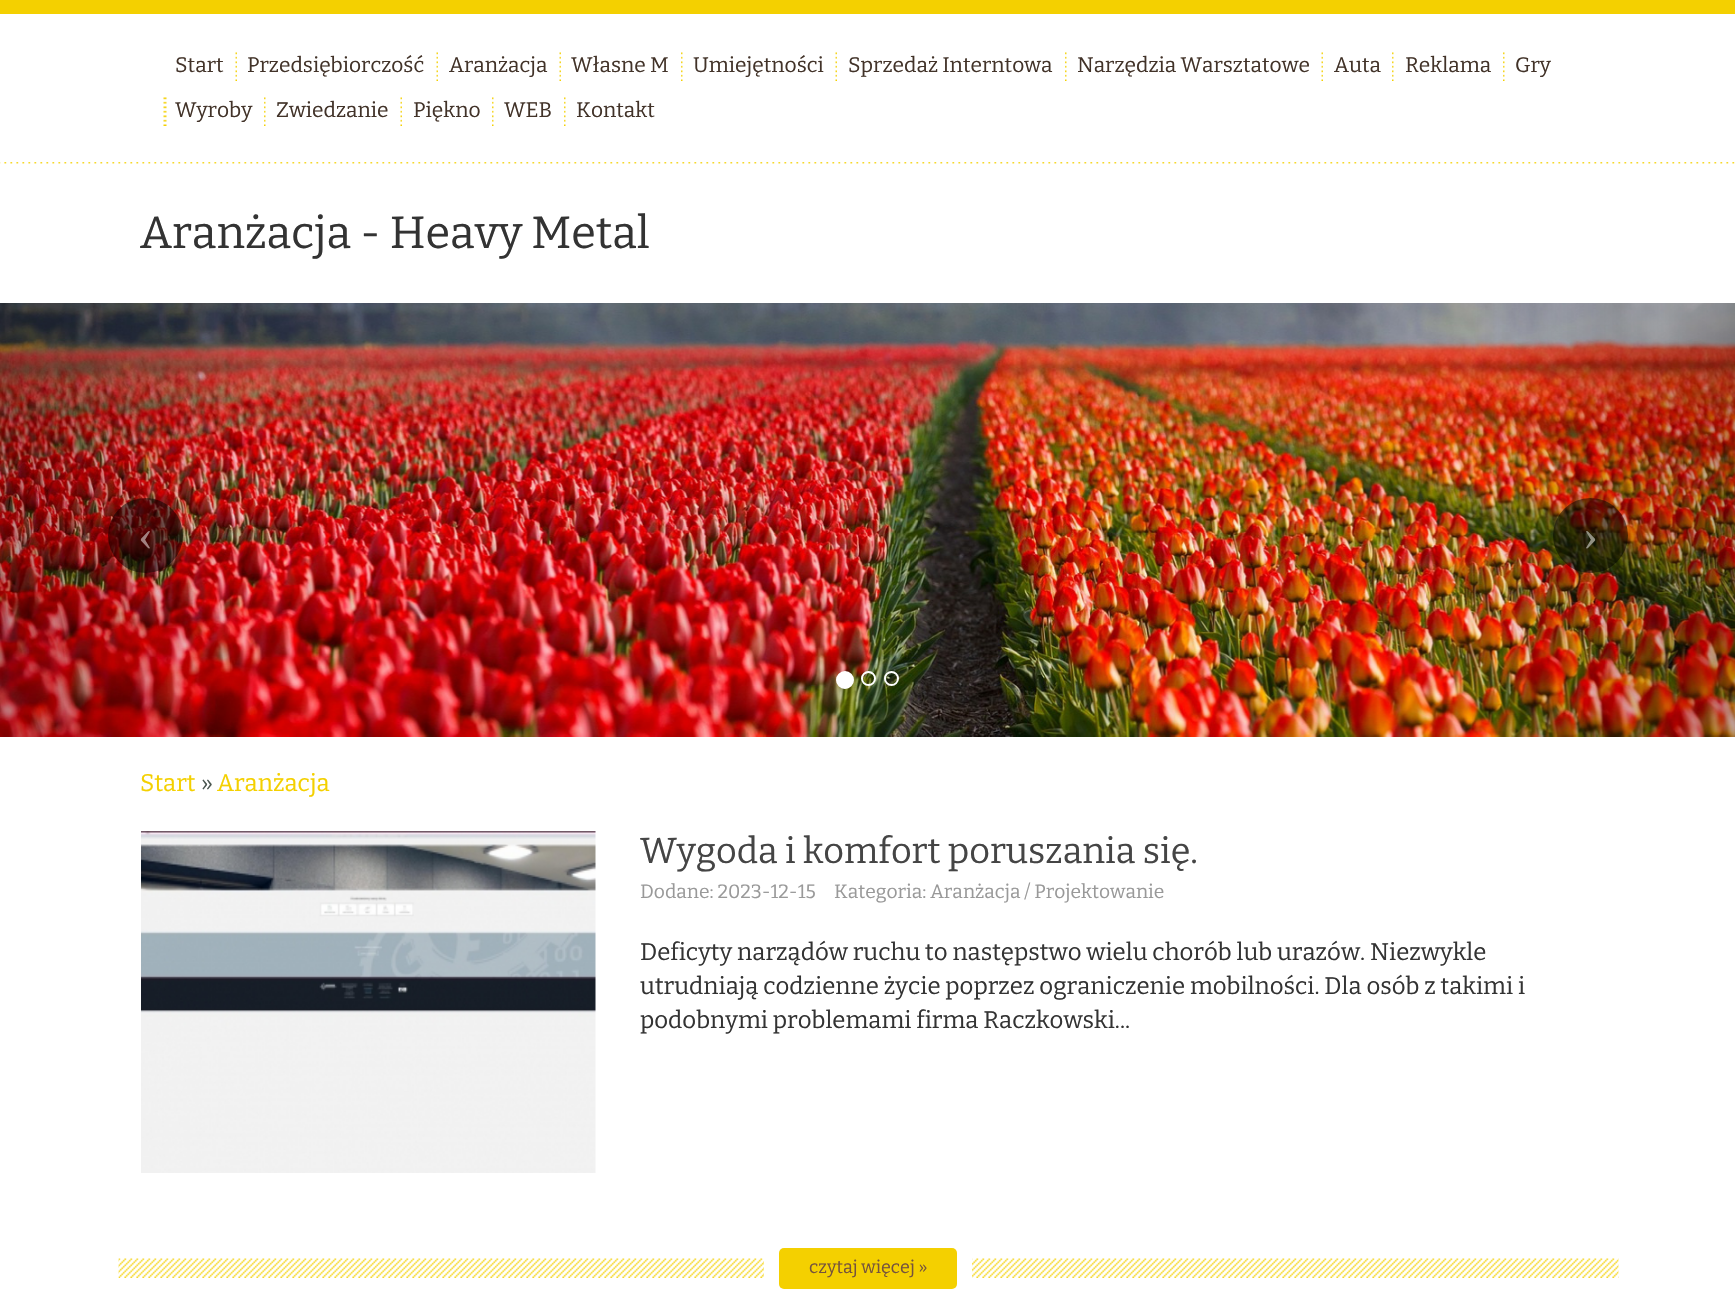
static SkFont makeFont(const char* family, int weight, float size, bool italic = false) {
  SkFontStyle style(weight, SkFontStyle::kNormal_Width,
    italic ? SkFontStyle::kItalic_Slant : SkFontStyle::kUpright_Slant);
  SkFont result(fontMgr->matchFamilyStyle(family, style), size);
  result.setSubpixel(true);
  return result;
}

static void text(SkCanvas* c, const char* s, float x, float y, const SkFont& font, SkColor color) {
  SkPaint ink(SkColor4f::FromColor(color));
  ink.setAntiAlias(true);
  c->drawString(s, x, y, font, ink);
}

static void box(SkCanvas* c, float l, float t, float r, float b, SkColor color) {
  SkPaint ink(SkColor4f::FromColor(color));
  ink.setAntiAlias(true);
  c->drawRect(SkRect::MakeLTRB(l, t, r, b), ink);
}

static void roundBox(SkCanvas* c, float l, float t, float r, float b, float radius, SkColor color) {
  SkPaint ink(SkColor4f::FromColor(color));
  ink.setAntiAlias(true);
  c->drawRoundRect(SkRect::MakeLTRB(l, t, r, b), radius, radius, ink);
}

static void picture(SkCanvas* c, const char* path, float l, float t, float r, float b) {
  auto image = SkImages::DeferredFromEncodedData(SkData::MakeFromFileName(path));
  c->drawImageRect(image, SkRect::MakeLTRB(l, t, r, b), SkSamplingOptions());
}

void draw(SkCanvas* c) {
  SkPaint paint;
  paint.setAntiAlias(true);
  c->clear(0xffffffff);
  box(c, 0, 0, 1735, 14, 0xfff4d000);
  picture(c, "img_01.png", 0, 162, 1735, 164);
  SkFont face1 = makeFont("Bitter", 100, 21);
  text(c, "Start", 175, 72, face1, 0xff423329);
  picture(c, "img_02.png", 235, 52, 237, 81);
  text(c, "Przedsiębiorczość", 247, 72, face1, 0xff423329);
  picture(c, "img_02.png", 436, 52, 438, 81);
  text(c, "Aranżacja", 449, 72, face1, 0xff423329);
  picture(c, "img_02.png", 559, 52, 561, 81);
  text(c, "Własne M", 571, 72, face1, 0xff423329);
  picture(c, "img_03.png", 681, 52, 683, 81);
  text(c, "Umiejętności", 693, 72, face1, 0xff423329);
  picture(c, "img_02.png", 835, 52, 837, 81);
  text(c, "Sprzedaż Interntowa", 848, 72, face1, 0xff423329);
  picture(c, "img_03.png", 1065, 52, 1067, 81);
  text(c, "Narzędzia Warsztatowe", 1077, 72, face1, 0xff423329);
  picture(c, "img_02.png", 1321, 52, 1323, 81);
  text(c, "Auta", 1334, 72, face1, 0xff423329);
  picture(c, "img_03.png", 1392, 52, 1394, 81);
  text(c, "Reklama", 1405, 72, face1, 0xff423329);
  picture(c, "img_03.png", 1503, 52, 1505, 81);
  text(c, "Gry", 1515, 72, face1, 0xff423329);
  picture(c, "img_04.png", 163, 97, 167, 126);
  text(c, "Wyroby", 175, 117, face1, 0xff423329);
  picture(c, "img_03.png", 264, 97, 266, 126);
  text(c, "Zwiedzanie", 276, 117, face1, 0xff423329);
  picture(c, "img_02.png", 400, 97, 402, 126);
  text(c, "Piękno", 413, 117, face1, 0xff423329);
  picture(c, "img_03.png", 492, 97, 494, 126);
  text(c, "WEB", 504, 117, face1, 0xff423329);
  picture(c, "img_03.png", 564, 97, 566, 126);
  text(c, "Kontakt", 576, 117, face1, 0xff423329);
  SkFont face2 = makeFont("Bitter", 100, 45);
  text(c, "Aranżacja - Heavy Metal", 140, 248, face2, 0xff333333);
  picture(c, "img_05.png", 0, 303, 1735, 737);
  paint.setColor(0x80000000);
  c->drawCircle(145.5f, 535.5f, 37.5f, paint);
  SkFont face3 = makeFont("Liberation Serif", 400, 45);
  text(c, "‹", 138, 550, face3, 0xffa28180);
  c->drawCircle(1590.5f, 535.5f, 37.5f, paint);
  text(c, "›", 1583, 550, face3, 0xff929183);
  paint.setColor(0xffffffff);
  c->drawCircle(845, 680, 8, paint);
  paint.setStyle(SkPaint::kStroke_Style);
  paint.setStrokeWidth(2);
  c->drawCircle(845, 680, 8, paint);
  c->drawCircle(868.5f, 678.5f, 6.5f, paint);
  c->drawCircle(891.5f, 678.5f, 6.5f, paint);
  SkFont face4 = makeFont("Bitter", 100, 24);
  text(c, "Start", 140, 791, face4, 0xfff4d000);
  text(c, "»", 201, 791, face4, 0xff4b5751);
  text(c, "Aranżacja", 217, 791, face4, 0xfff4d000);
  picture(c, "img_06.png", 141, 831, 596, 1173);
  SkFont face5 = makeFont("Bitter", 100, 36);
  text(c, "Wygoda i komfort poruszania się.", 640, 863, face5, 0xff454545);
  SkFont face6 = makeFont("Bitter", 100, 19.25f);
  text(c, "Dodane: 2023-12-15", 640, 898, face6, 0xff999999);
  text(c, "Kategoria: Aranżacja / Projektowanie", 834, 898, face6, 0xff999999);
  text(c, "Deficyty narządów ruchu to następstwo wielu chorób lub urazów. Niezwykle", 640, 960, face4, 0xff333333);
  text(c, "utrudniają codzienne życie poprzez ograniczenie mobilności. Dla osób z takimi i", 640, 994, face4, 0xff333333);
  text(c, "podobnymi problemami firma Raczkowski...", 640, 1028, face4, 0xff333333);
  picture(c, "img_07.png", 118, 1258, 1619, 1278);
  box(c, 764, 1258, 972, 1278, 0xffffffff);
  roundBox(c, 779, 1248, 957, 1289, 5, 0xfff4d000);
  SkFont face7 = makeFont("Bitter", 100, 18);
  text(c, "czytaj więcej »", 809, 1273, face7, 0xff75533d);
}
